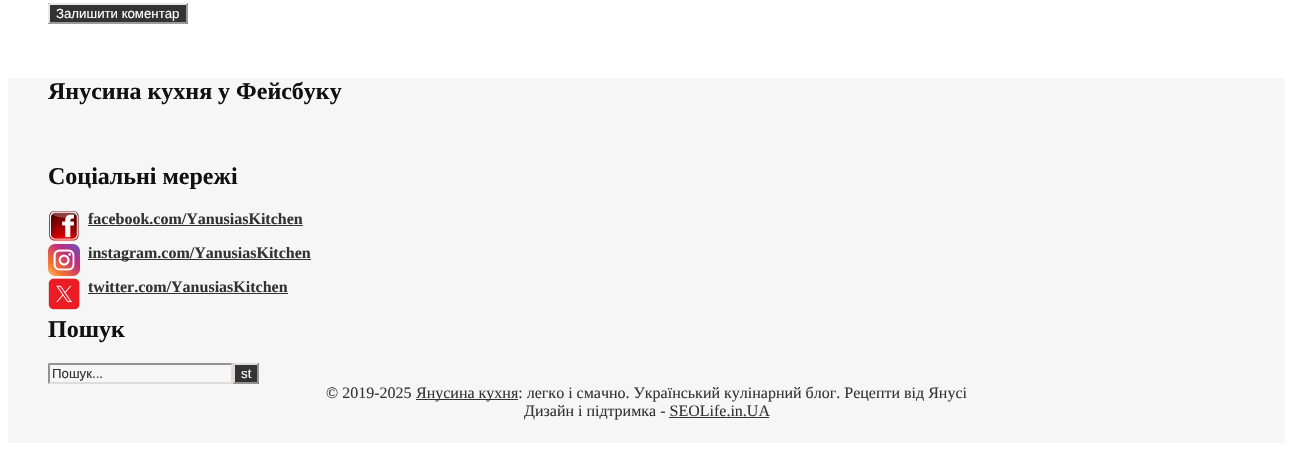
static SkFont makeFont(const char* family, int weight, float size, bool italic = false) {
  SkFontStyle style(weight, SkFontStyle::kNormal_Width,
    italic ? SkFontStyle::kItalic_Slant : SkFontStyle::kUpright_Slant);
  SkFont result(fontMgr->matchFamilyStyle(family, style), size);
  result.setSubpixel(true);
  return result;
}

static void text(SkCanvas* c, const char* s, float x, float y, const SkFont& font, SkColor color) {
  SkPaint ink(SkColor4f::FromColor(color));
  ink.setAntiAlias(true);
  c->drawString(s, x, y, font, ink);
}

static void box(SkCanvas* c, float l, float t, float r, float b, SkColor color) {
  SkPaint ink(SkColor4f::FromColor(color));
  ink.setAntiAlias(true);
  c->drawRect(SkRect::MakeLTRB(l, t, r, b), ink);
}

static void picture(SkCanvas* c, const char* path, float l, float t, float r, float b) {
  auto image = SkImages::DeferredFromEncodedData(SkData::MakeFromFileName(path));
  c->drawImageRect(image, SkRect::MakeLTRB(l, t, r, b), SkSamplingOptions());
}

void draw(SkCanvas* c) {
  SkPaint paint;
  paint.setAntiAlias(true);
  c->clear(0xffffffff);
  box(c, 48, 3, 188, 24, 0xff333333);
  paint.setColor(0xffe8e8e8);
  c->drawPath(SkPathBuilder().moveTo(48, 3).lineTo(188, 3).lineTo(186, 5).lineTo(50, 5).close().detach(), paint);
  paint.setColor(0xff9b9b9b);
  c->drawPath(SkPathBuilder().moveTo(188, 3).lineTo(188, 24).lineTo(186, 22).lineTo(186, 5).close().detach(), paint);
  c->drawPath(SkPathBuilder().moveTo(188, 24).lineTo(48, 24).lineTo(50, 22).lineTo(186, 22).close().detach(), paint);
  paint.setColor(0xffe8e8e8);
  c->drawPath(SkPathBuilder().moveTo(48, 24).lineTo(48, 3).lineTo(50, 5).lineTo(50, 22).close().detach(), paint);
  SkFont face1 = makeFont("Liberation Sans", 400, 13.25f);
  text(c, "Залишити коментар", 56, 18, face1, 0xffffffff);
  box(c, 8, 78, 1285, 443, 0xfff6f6f6);
  SkFont face2 = makeFont("Liberation Serif", 700, 24);
  text(c, "Янусина кухня у Фейсбуку", 48, 99, face2, 0xff111111);
  text(c, "Соціальні мережі", 48, 184, face2, 0xff111111);
  picture(c, "img_01.png", 49, 211, 79, 241);
  SkFont face3 = makeFont("Liberation Serif", 700, 16);
  text(c, "facebook.com/YanusiasKitchen", 88, 224, face3, 0xff333333);
  box(c, 88, 225, 303, 226, 0xff333333);
  picture(c, "img_02.png", 48, 244, 80, 276);
  box(c, 88, 259, 311, 260, 0xff333333);
  text(c, "instagram.com/YanusiasKitchen", 88, 258, face3, 0xff333333);
  picture(c, "img_03.png", 48, 278, 80, 310);
  text(c, "twitter.com/YanusiasKitchen", 88, 292, face3, 0xff333333);
  box(c, 88, 293, 288, 294, 0xff333333);
  text(c, "Пошук", 48, 337, face2, 0xff111111);
  paint.setColor(0xff959292);
  c->drawPath(SkPathBuilder().moveTo(48, 363).lineTo(233, 363).lineTo(231, 365).lineTo(50, 365).close().detach(), paint);
  paint.setColor(0xffe0dbdb);
  c->drawPath(SkPathBuilder().moveTo(233, 363).lineTo(233, 384).lineTo(231, 382).lineTo(231, 365).close().detach(), paint);
  c->drawPath(SkPathBuilder().moveTo(233, 384).lineTo(48, 384).lineTo(50, 382).lineTo(231, 382).close().detach(), paint);
  paint.setColor(0xff959292);
  c->drawPath(SkPathBuilder().moveTo(48, 384).lineTo(48, 363).lineTo(50, 365).lineTo(50, 382).close().detach(), paint);
  text(c, "Пошук...", 52, 378, face1, 0xff333333);
  box(c, 233, 363, 259, 384, 0xff333333);
  paint.setColor(0xffe0dbdb);
  c->drawPath(SkPathBuilder().moveTo(233, 363).lineTo(259, 363).lineTo(257, 365).lineTo(235, 365).close().detach(), paint);
  paint.setColor(0xff959292);
  c->drawPath(SkPathBuilder().moveTo(259, 363).lineTo(259, 384).lineTo(257, 382).lineTo(257, 365).close().detach(), paint);
  c->drawPath(SkPathBuilder().moveTo(259, 384).lineTo(233, 384).lineTo(235, 382).lineTo(257, 382).close().detach(), paint);
  paint.setColor(0xffe0dbdb);
  c->drawPath(SkPathBuilder().moveTo(233, 384).lineTo(233, 363).lineTo(235, 365).lineTo(235, 382).close().detach(), paint);
  text(c, "st", 241, 378, face1, 0xffffffff);
  SkFont face4 = makeFont("Liberation Serif", 400, 16);
  text(c, "© 2019-2025", 326, 398, face4, 0xff333333);
  box(c, 416, 399, 518, 400, 0xff333333);
  text(c, "Янусина кухня: легко і смачно. Український кулінарний блог. Рецепти від Янусі", 416, 398, face4, 0xff333333);
  text(c, "Дизайн і підтримка - SEOLife.in.UA", 524, 416, face4, 0xff333333);
  box(c, 669, 417, 769, 418, 0xff333333);
}
